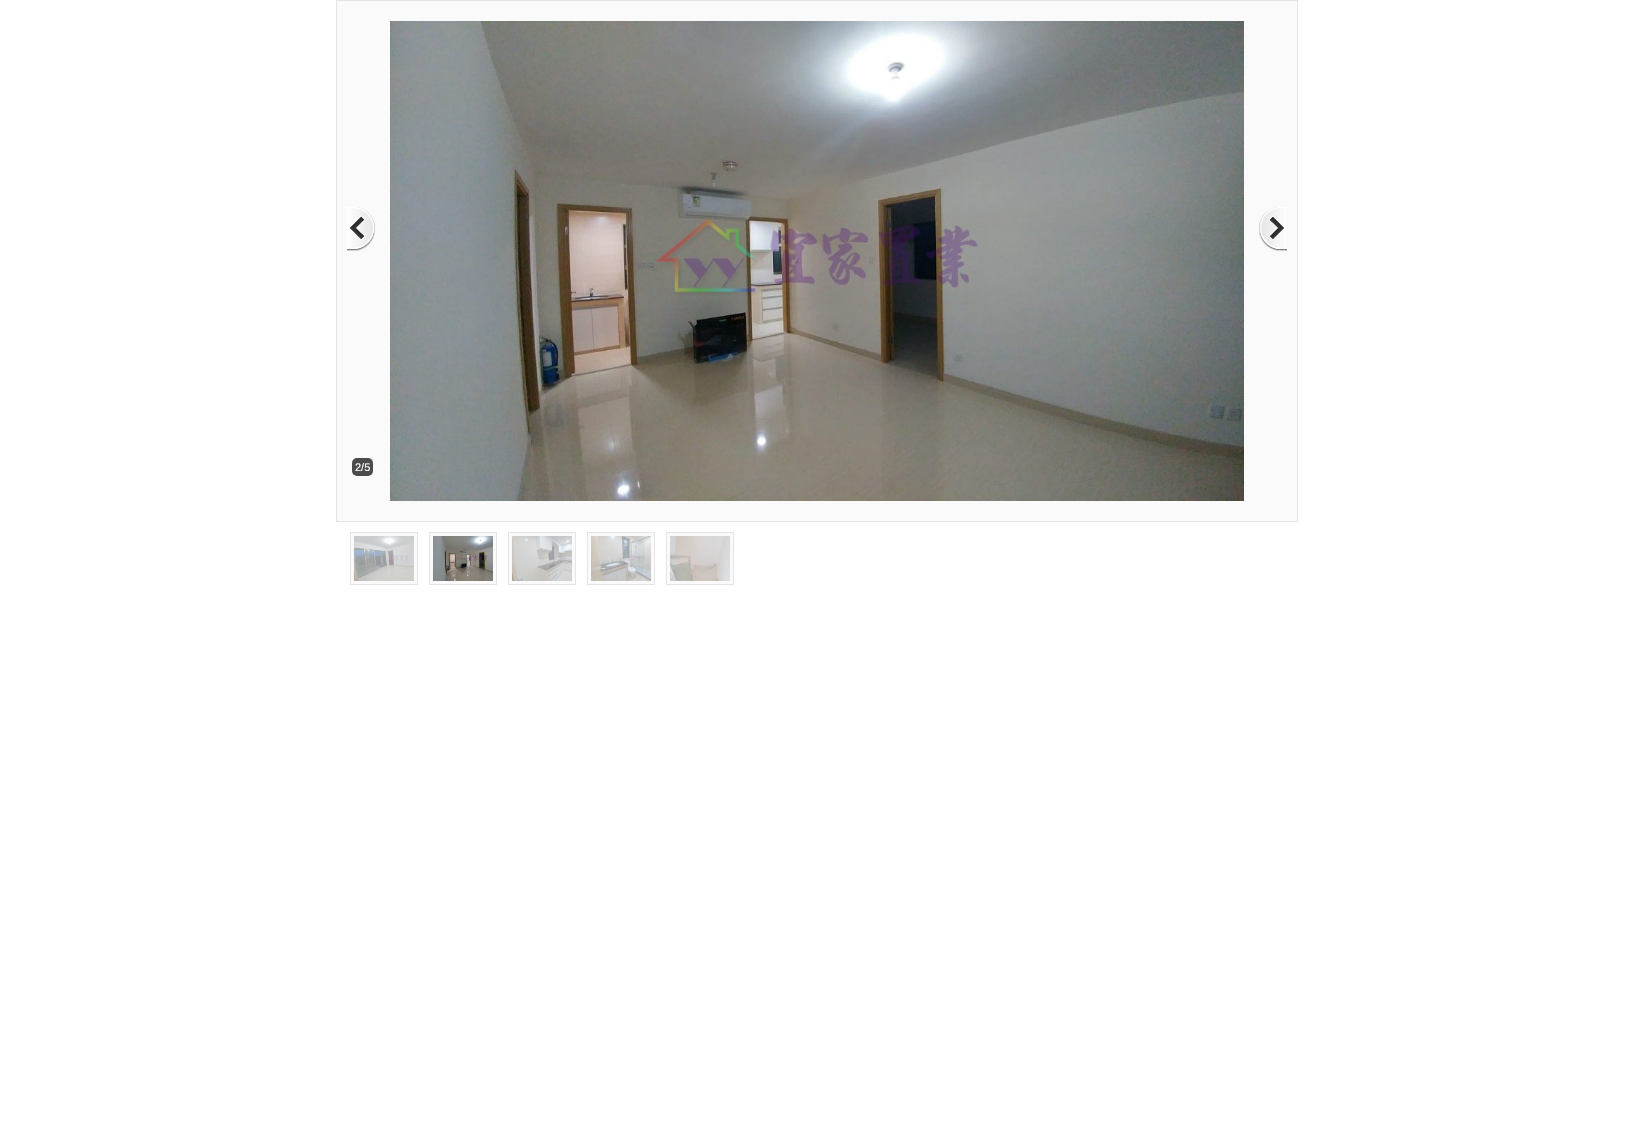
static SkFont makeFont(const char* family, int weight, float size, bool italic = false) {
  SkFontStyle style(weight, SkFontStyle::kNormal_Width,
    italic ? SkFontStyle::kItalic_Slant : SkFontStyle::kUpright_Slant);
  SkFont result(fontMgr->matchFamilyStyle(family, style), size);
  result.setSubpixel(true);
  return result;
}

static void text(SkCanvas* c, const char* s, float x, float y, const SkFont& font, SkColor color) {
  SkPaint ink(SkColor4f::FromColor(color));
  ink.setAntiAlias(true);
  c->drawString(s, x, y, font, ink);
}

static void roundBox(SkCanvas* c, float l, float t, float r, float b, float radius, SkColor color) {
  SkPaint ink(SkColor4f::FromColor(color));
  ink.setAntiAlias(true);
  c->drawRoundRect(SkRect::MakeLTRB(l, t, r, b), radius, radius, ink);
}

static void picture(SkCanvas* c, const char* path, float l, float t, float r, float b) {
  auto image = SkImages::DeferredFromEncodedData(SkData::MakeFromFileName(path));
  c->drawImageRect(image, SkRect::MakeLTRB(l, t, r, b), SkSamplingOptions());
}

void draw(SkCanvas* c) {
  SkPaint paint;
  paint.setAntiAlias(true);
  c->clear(0xffffffff);
  paint.setColor(0xfffafafa);
  c->drawRect(SkRect::MakeLTRB(336.5f, 0.5f, 1297.5f, 521.5f), paint);
  paint.setStyle(SkPaint::kStroke_Style);
  paint.setStrokeWidth(1);
  paint.setColor(0xffe5e5e5);
  c->drawRect(SkRect::MakeLTRB(336.5f, 0.5f, 1297.5f, 521.5f), paint);
  picture(c, "img_01.png", 347, 207, 375, 251);
  picture(c, "img_02.png", 1259, 207, 1287, 251);
  roundBox(c, 352, 458, 373, 476, 5, 0xff4b4b4b);
  SkFont face1 = makeFont("Liberation Sans", 400, 11);
  text(c, "2/5", 355, 471, face1, 0xffffffff);
  picture(c, "img_03.png", 390, 21, 1244, 501);
  paint.setStyle(SkPaint::kFill_Style);
  paint.setColor(0xfffafafa);
  c->drawRect(SkRect::MakeLTRB(350.5f, 532.5f, 417.5f, 584.5f), paint);
  paint.setStyle(SkPaint::kStroke_Style);
  paint.setColor(0xffe5e5e5);
  c->drawRect(SkRect::MakeLTRB(350.5f, 532.5f, 417.5f, 584.5f), paint);
  picture(c, "img_04.png", 354, 536, 414, 581);
  paint.setStyle(SkPaint::kFill_Style);
  paint.setColor(0xfffafafa);
  c->drawRect(SkRect::MakeLTRB(429.5f, 532.5f, 496.5f, 584.5f), paint);
  paint.setStyle(SkPaint::kStroke_Style);
  paint.setColor(0xffe5e5e5);
  c->drawRect(SkRect::MakeLTRB(429.5f, 532.5f, 496.5f, 584.5f), paint);
  picture(c, "img_05.png", 433, 536, 493, 581);
  paint.setStyle(SkPaint::kFill_Style);
  paint.setColor(0xfffafafa);
  c->drawRect(SkRect::MakeLTRB(508.5f, 532.5f, 575.5f, 584.5f), paint);
  paint.setStyle(SkPaint::kStroke_Style);
  paint.setColor(0xffe5e5e5);
  c->drawRect(SkRect::MakeLTRB(508.5f, 532.5f, 575.5f, 584.5f), paint);
  picture(c, "img_06.png", 512, 536, 572, 581);
  paint.setStyle(SkPaint::kFill_Style);
  paint.setColor(0xfffafafa);
  c->drawRect(SkRect::MakeLTRB(587.5f, 532.5f, 654.5f, 584.5f), paint);
  paint.setStyle(SkPaint::kStroke_Style);
  paint.setColor(0xffe5e5e5);
  c->drawRect(SkRect::MakeLTRB(587.5f, 532.5f, 654.5f, 584.5f), paint);
  picture(c, "img_07.png", 591, 536, 651, 581);
  paint.setStyle(SkPaint::kFill_Style);
  paint.setColor(0xfffafafa);
  c->drawRect(SkRect::MakeLTRB(666.5f, 532.5f, 733.5f, 584.5f), paint);
  paint.setStyle(SkPaint::kStroke_Style);
  paint.setColor(0xffe5e5e5);
  c->drawRect(SkRect::MakeLTRB(666.5f, 532.5f, 733.5f, 584.5f), paint);
  picture(c, "img_08.png", 670, 536, 730, 581);
}
